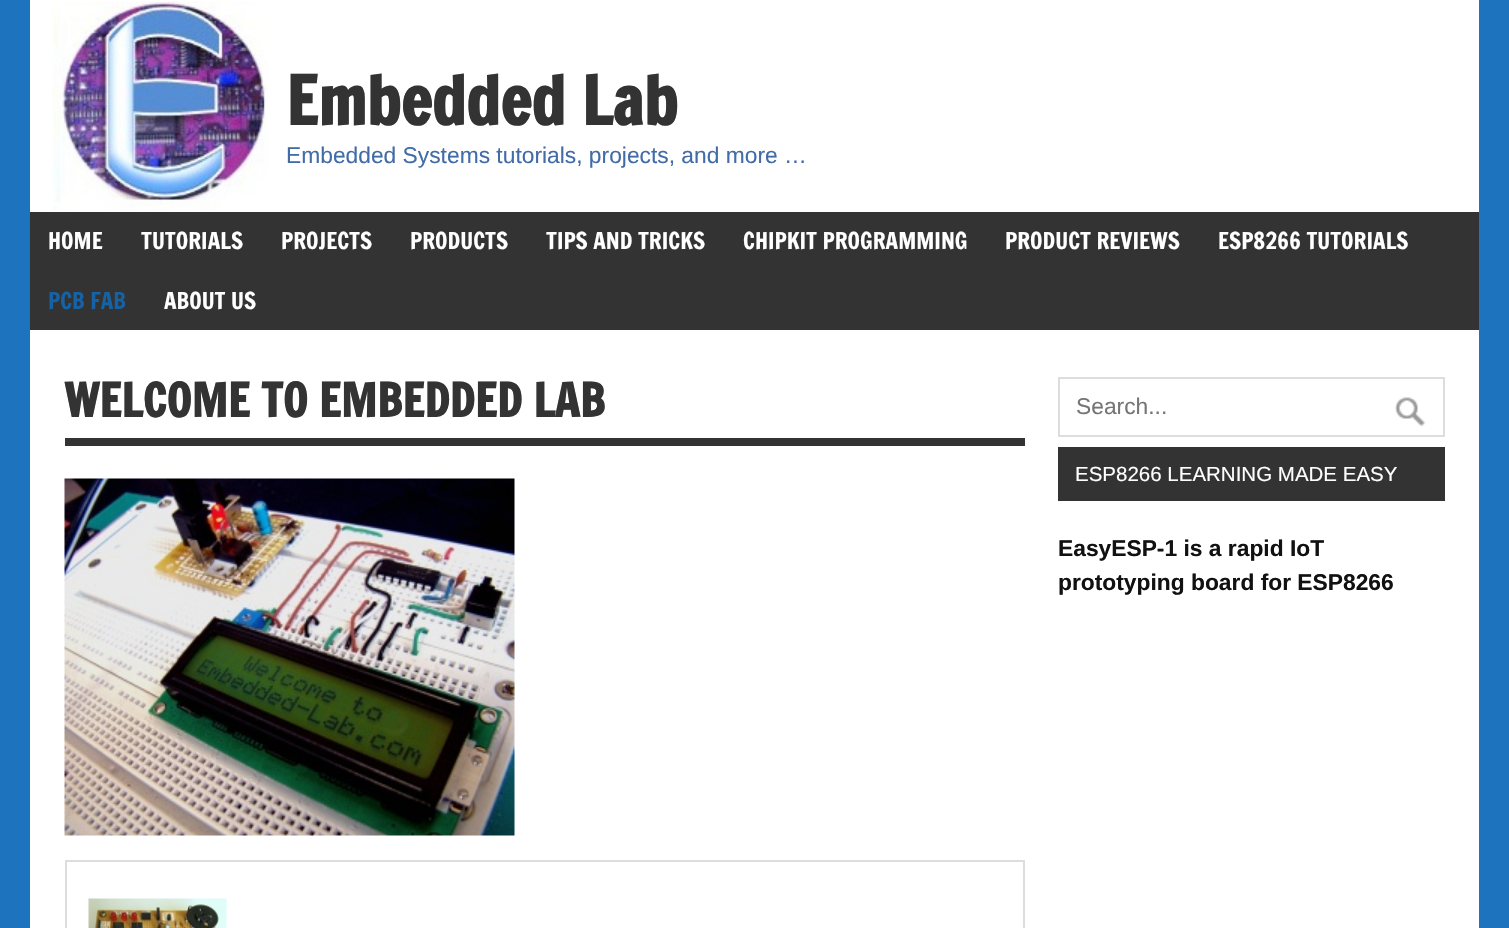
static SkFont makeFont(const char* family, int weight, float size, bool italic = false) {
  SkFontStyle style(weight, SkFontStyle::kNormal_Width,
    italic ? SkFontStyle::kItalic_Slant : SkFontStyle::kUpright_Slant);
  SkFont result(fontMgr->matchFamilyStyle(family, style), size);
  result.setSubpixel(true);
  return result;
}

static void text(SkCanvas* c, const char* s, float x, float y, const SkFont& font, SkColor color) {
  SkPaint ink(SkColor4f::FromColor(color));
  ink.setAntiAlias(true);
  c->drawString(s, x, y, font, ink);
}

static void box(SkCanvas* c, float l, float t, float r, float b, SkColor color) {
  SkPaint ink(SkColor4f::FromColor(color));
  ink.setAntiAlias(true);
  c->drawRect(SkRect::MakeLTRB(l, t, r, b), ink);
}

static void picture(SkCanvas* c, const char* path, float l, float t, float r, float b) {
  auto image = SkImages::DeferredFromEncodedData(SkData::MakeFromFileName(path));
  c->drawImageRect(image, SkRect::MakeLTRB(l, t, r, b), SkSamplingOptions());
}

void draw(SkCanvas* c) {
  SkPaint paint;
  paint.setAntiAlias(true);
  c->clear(0xff1e73be);
  box(c, 30, 0, 1479, 928, 0xffffffff);
  picture(c, "img_01.png", 52, 1, 268, 210);
  SkFont face1 = makeFont("Francois One", 700, 66);
  text(c, "Embedded Lab", 286, 125, face1, 0xff333333);
  SkFont face2 = makeFont("Liberation Sans", 400, 22.8f);
  text(c, "Embedded Systems tutorials, projects, and more …", 286, 163, face2, 0xff426ca8);
  box(c, 30, 212, 1479, 330, 0xff333333);
  SkFont face3 = makeFont("Francois One", 400, 22.8f);
  text(c, "HOME", 48, 249, face3, 0xffffffff);
  text(c, "TUTORIALS", 141, 249, face3, 0xffffffff);
  text(c, "PROJECTS", 281, 249, face3, 0xffffffff);
  text(c, "PRODUCTS", 410, 249, face3, 0xffffffff);
  text(c, "TIPS AND TRICKS", 546, 249, face3, 0xffffffff);
  text(c, "CHIPKIT PROGRAMMING", 743, 249, face3, 0xffffffff);
  text(c, "PRODUCT REVIEWS", 1005, 249, face3, 0xffffffff);
  text(c, "ESP8266 TUTORIALS", 1218, 249, face3, 0xffffffff);
  text(c, "PCB FAB", 48, 309, face3, 0xff1562a5);
  text(c, "ABOUT US", 164, 309, face3, 0xffffffff);
  box(c, 65, 438, 1025, 446, 0xff333333);
  SkFont face4 = makeFont("Francois One", 700, 45.6f);
  text(c, "WELCOME TO EMBEDDED LAB", 64, 417, face4, 0xff333333);
  picture(c, "img_02.png", 64, 478, 515, 836);
  box(c, 65, 860, 1025, 862, 0xffdddddd);
  box(c, 1023, 860, 1025, 928, 0xffdddddd);
  box(c, 65, 860, 67, 928, 0xffdddddd);
  picture(c, "img_03.png", 88, 898, 227, 928);
  paint.setStyle(SkPaint::kStroke_Style);
  paint.setStrokeWidth(2);
  paint.setColor(0xffdddddd);
  c->drawRect(SkRect::MakeLTRB(1059, 378, 1444, 436), paint);
  text(c, "Search...", 1076, 414, face2, 0xff757575);
  picture(c, "img_04.png", 1395, 397, 1426, 427);
  box(c, 1058, 447, 1445, 501, 0xff333333);
  SkFont face5 = makeFont("Liberation Sans", 400, 20.5f);
  text(c, "ESP8266 LEARNING MADE EASY", 1075, 481, face5, 0xffffffff);
  SkFont face6 = makeFont("Liberation Sans", 700, 22.8f);
  text(c, "EasyESP-1 is a rapid IoT", 1058, 556, face6, 0xff111111);
  text(c, "prototyping board for ESP8266", 1058, 590, face6, 0xff111111);
}
